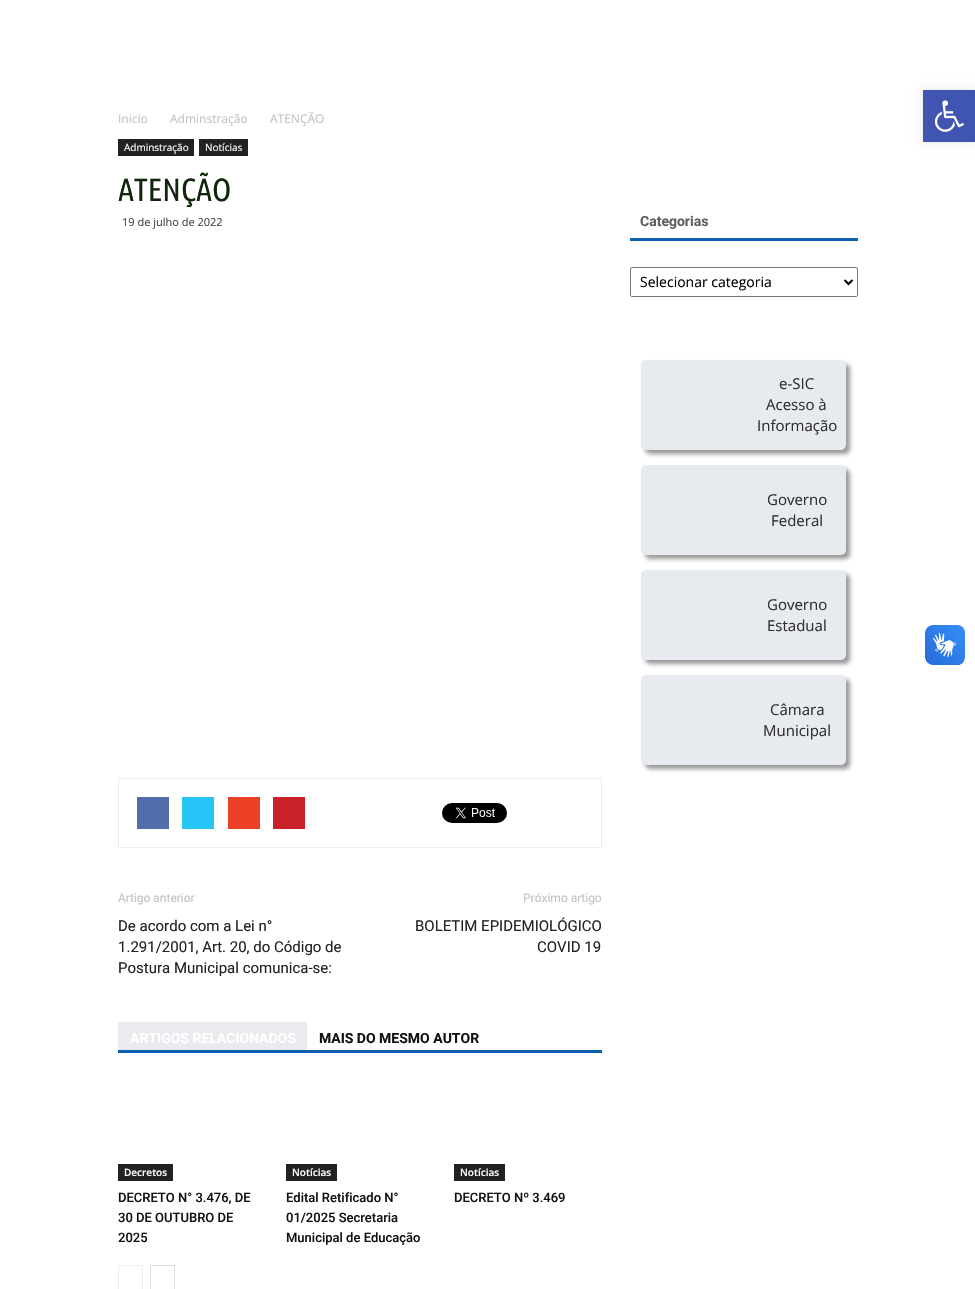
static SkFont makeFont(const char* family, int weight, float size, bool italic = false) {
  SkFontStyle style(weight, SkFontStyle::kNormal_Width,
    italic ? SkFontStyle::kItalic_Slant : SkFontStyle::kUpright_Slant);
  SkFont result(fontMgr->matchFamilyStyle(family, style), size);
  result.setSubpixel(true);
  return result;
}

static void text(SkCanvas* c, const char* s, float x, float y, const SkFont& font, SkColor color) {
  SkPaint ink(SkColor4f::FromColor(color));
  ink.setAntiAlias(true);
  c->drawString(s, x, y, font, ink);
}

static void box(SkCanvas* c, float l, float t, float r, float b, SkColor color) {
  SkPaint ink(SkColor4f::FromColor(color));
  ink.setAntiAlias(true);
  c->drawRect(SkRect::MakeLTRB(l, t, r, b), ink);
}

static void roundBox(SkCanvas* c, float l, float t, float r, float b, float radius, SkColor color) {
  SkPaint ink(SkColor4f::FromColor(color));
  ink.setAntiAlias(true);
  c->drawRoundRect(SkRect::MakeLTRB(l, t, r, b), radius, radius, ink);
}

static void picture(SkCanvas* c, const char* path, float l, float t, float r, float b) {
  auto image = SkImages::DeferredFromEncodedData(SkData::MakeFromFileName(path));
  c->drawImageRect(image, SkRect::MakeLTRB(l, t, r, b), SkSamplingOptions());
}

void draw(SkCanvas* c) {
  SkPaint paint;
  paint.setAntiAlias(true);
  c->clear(0xffffffff);
  SkFont face1 = makeFont("Open Sans", 400, 12);
  text(c, "Inicio", 118, 123, face1, 0xffc3c3c3);
  text(c, "Adminstração", 170, 123, face1, 0xffc3c3c3);
  text(c, "ATENÇÃO", 270, 123, face1, 0xffc3c3c3);
  box(c, 118, 139, 194, 156, 0xff222222);
  SkFont face2 = makeFont("Open Sans", 400, 10);
  text(c, "Adminstração", 124, 151, face2, 0xffffffff);
  box(c, 199, 139, 248, 156, 0xff222222);
  text(c, "Notícias", 205, 151, face2, 0xffffffff);
  SkFont face3 = makeFont("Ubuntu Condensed", 400, 32);
  text(c, "ATENÇÃO", 118, 201, face3, 0xff10260b);
  SkFont face4 = makeFont("Open Sans", 400, 11);
  text(c, "19 de julho de 2022", 122, 226, face4, 0xff444444);
  paint.setStyle(SkPaint::kStroke_Style);
  paint.setStrokeWidth(1);
  paint.setColor(0xffededed);
  c->drawRect(SkRect::MakeLTRB(118.5f, 778.5f, 601.5f, 847.5f), paint);
  box(c, 137, 797, 169, 829, 0xff516eab);
  box(c, 182, 797, 214, 829, 0xff29c5f6);
  box(c, 228, 797, 260, 829, 0xffeb4026);
  box(c, 273, 797, 305, 829, 0xffca212a);
  picture(c, "img_01.png", 442, 803, 507, 823);
  SkFont face5 = makeFont("Roboto", 400, 12);
  text(c, "Artigo anterior", 118, 902, face5, 0xffc3c3c3);
  SkFont face6 = makeFont("Roboto", 400, 15);
  text(c, "De acordo com a Lei n°", 118, 931, face6, 0xff222222);
  text(c, "1.291/2001, Art. 20, do Código de", 118, 952, face6, 0xff222222);
  text(c, "Postura Municipal comunica-se:", 118, 973, face6, 0xff222222);
  text(c, "Próximo artigo", 523, 902, face5, 0xffc3c3c3);
  text(c, "BOLETIM EPIDEMIOLÓGICO", 415, 931, face6, 0xff222222);
  text(c, "COVID 19", 537, 952, face6, 0xff222222);
  box(c, 118, 1050, 602, 1053, 0xff0a61b1);
  box(c, 118, 1022, 307, 1050, 0xffe9ebee);
  SkFont face7 = makeFont("Roboto", 700, 14);
  text(c, "ARTIGOS RELACIONADOS", 130, 1043, face7, 0xffffffff);
  text(c, "MAIS DO MESMO AUTOR", 319, 1043, face7, 0xff111111);
  box(c, 118, 1164, 173, 1181, 0xff222222);
  SkFont face8 = makeFont("Open Sans", 600, 10);
  text(c, "Decretos", 124, 1176, face8, 0xffffffff);
  SkFont face9 = makeFont("Roboto", 500, 13);
  text(c, "DECRETO N° 3.476, DE", 118, 1202, face9, 0xff111111);
  text(c, "30 DE OUTUBRO DE", 118, 1222, face9, 0xff111111);
  text(c, "2025", 118, 1242, face9, 0xff111111);
  box(c, 286, 1164, 337, 1181, 0xff222222);
  text(c, "Notícias", 292, 1176, face8, 0xffffffff);
  text(c, "Edital Retificado N°", 286, 1202, face9, 0xff111111);
  text(c, "01/2025 Secretaria", 286, 1222, face9, 0xff111111);
  text(c, "Municipal de Educação", 286, 1242, face9, 0xff111111);
  box(c, 454, 1164, 505, 1181, 0xff222222);
  text(c, "Notícias", 460, 1176, face8, 0xffffffff);
  text(c, "DECRETO Nº 3.469", 454, 1202, face9, 0xff111111);
  paint.setColor(0xffeeeeee);
  c->drawRect(SkRect::MakeLTRB(118.5f, 1265.5f, 142.5f, 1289.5f), paint);
  paint.setColor(0xffdcdcdc);
  c->drawRect(SkRect::MakeLTRB(150.5f, 1265.5f, 174.5f, 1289.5f), paint);
  box(c, 630, 238, 858, 241, 0xff0a61b1);
  text(c, "Categorias", 640, 226, face7, 0xff5e5e5e);
  paint.setColor(0xff767676);
  c->drawRoundRect(SkRect::MakeLTRB(630.5f, 267.5f, 857.5f, 296.5f), 1.5f, 1.5f, paint);
  paint.setStrokeWidth(2);
  paint.setColor(0xff000000);
  c->drawPath(SkPathBuilder().moveTo(844.5f, 280).lineTo(848.5f, 284).lineTo(852.5f, 280).detach(), paint);
  SkFont face10 = makeFont("Open Sans", 400, 14);
  text(c, "Selecionar categoria", 640, 287, face10, 0xff000000);
  paint.setStyle(SkPaint::kFill_Style);
  paint.setColor(0xff999999);
  paint.setMaskFilter(SkMaskFilter::MakeBlur(kNormal_SkBlurStyle, 2));
  c->drawRoundRect(SkRect::MakeLTRB(645, 364, 850, 454), 5, 5, paint);
  paint.setMaskFilter(nullptr);
  roundBox(c, 641, 360, 846, 450, 5, 0xffe7eaef);
  SkFont face11 = makeFont("Open Sans", 400, 15);
  text(c, "e-SIC", 779, 389, face11, 0xff302f2f);
  text(c, "Acesso à", 766, 410, face11, 0xff302f2f);
  text(c, "Informação", 757, 431, face11, 0xff302f2f);
  paint.setMaskFilter(SkMaskFilter::MakeBlur(kNormal_SkBlurStyle, 2));
  c->drawRoundRect(SkRect::MakeLTRB(645, 469, 850, 559), 5, 5, paint);
  paint.setMaskFilter(nullptr);
  roundBox(c, 641, 465, 846, 555, 5, 0xffe7eaef);
  text(c, "Governo", 767, 505, face11, 0xff302f2f);
  text(c, "Federal", 771, 526, face11, 0xff302f2f);
  paint.setMaskFilter(SkMaskFilter::MakeBlur(kNormal_SkBlurStyle, 2));
  c->drawRoundRect(SkRect::MakeLTRB(645, 574, 850, 664), 5, 5, paint);
  paint.setMaskFilter(nullptr);
  roundBox(c, 641, 570, 846, 660, 5, 0xffe7eaef);
  text(c, "Governo", 767, 610, face11, 0xff302f2f);
  text(c, "Estadual", 767, 631, face11, 0xff302f2f);
  paint.setMaskFilter(SkMaskFilter::MakeBlur(kNormal_SkBlurStyle, 2));
  c->drawRoundRect(SkRect::MakeLTRB(645, 679, 850, 769), 5, 5, paint);
  paint.setMaskFilter(nullptr);
  roundBox(c, 641, 675, 846, 765, 5, 0xffe7eaef);
  text(c, "Câmara", 770, 715, face11, 0xff302f2f);
  text(c, "Municipal", 763, 736, face11, 0xff302f2f);
  paint.setColor(0x1a000000);
  paint.setMaskFilter(SkMaskFilter::MakeBlur(kNormal_SkBlurStyle, 5));
  c->drawRect(SkRect::MakeLTRB(923, 90, 975, 142), paint);
  paint.setMaskFilter(nullptr);
  box(c, 923, 90, 975, 142, 0xff4054b2);
  picture(c, "img_02.png", 934, 100, 964, 132);
  picture(c, "img_03.png", 925, 625, 965, 665);
  picture(c, "img_04.png", 925, 625, 965, 665);
}
